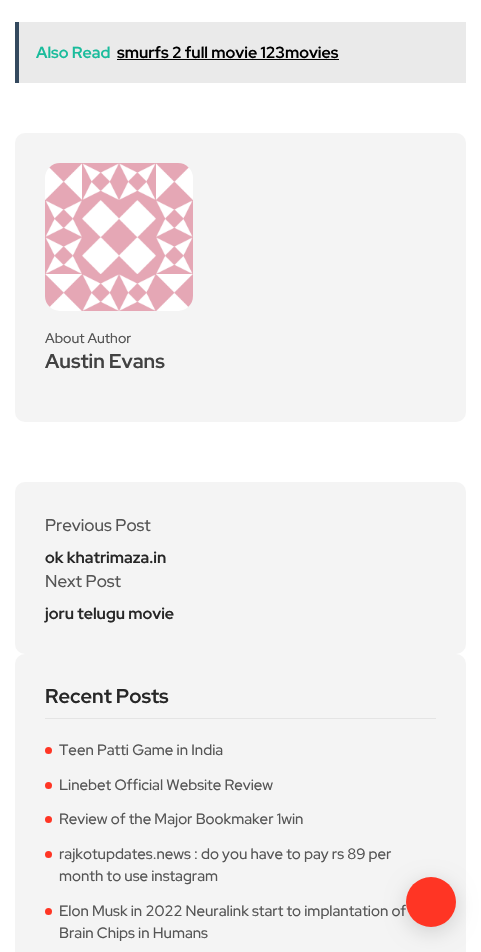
static SkFont makeFont(const char* family, int weight, float size, bool italic = false) {
  SkFontStyle style(weight, SkFontStyle::kNormal_Width,
    italic ? SkFontStyle::kItalic_Slant : SkFontStyle::kUpright_Slant);
  SkFont result(fontMgr->matchFamilyStyle(family, style), size);
  result.setSubpixel(true);
  return result;
}

static void text(SkCanvas* c, const char* s, float x, float y, const SkFont& font, SkColor color) {
  SkPaint ink(SkColor4f::FromColor(color));
  ink.setAntiAlias(true);
  c->drawString(s, x, y, font, ink);
}

static void box(SkCanvas* c, float l, float t, float r, float b, SkColor color) {
  SkPaint ink(SkColor4f::FromColor(color));
  ink.setAntiAlias(true);
  c->drawRect(SkRect::MakeLTRB(l, t, r, b), ink);
}

static void roundBox(SkCanvas* c, float l, float t, float r, float b, float radius, SkColor color) {
  SkPaint ink(SkColor4f::FromColor(color));
  ink.setAntiAlias(true);
  c->drawRoundRect(SkRect::MakeLTRB(l, t, r, b), radius, radius, ink);
}

static void picture(SkCanvas* c, const char* path, float l, float t, float r, float b) {
  auto image = SkImages::DeferredFromEncodedData(SkData::MakeFromFileName(path));
  c->drawImageRect(image, SkRect::MakeLTRB(l, t, r, b), SkSamplingOptions());
}

void draw(SkCanvas* c) {
  SkPaint paint;
  paint.setAntiAlias(true);
  c->clear(0xffffffff);
  box(c, 19, 22, 466, 83, 0xffeaeaea);
  box(c, 15, 22, 19, 83, 0xff34495e);
  SkFont face1 = makeFont("Red Hat Display", 700, 16);
  text(c, "Also Read", 36, 58, face1, 0xff1abc9c);
  text(c, "smurfs 2 full movie 123movies", 117, 58, face1, 0xff000000);
  box(c, 117, 59, 339, 60, 0xff000000);
  roundBox(c, 15, 133, 466, 422, 10, 0xfff4f4f4);
  picture(c, "img_01.png", 45, 163, 193, 311);
  SkFont face2 = makeFont("Red Hat Display", 500, 14);
  text(c, "About Author", 45, 343, face2, 0xff555555);
  SkFont face3 = makeFont("Red Hat Display", 700, 20);
  text(c, "Austin Evans", 45, 368, face3, 0xff424242);
  roundBox(c, 15, 482, 466, 654, 10, 0xfff4f4f4);
  SkFont face4 = makeFont("Red Hat Display", 500, 17);
  text(c, "Previous Post", 45, 531, face4, 0xff555555);
  text(c, "ok khatrimaza.in", 45, 563, face1, 0xff272727);
  text(c, "Next Post", 45, 587, face4, 0xff555555);
  text(c, "joru telugu movie", 45, 619, face1, 0xff272727);
  roundBox(c, 15, 654, 466, 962, 10, 0xfff4f4f4);
  box(c, 45, 718, 436, 719, 0xffe4e4e4);
  text(c, "Recent Posts", 45, 703, face3, 0xff272727);
  paint.setColor(0xffff3524);
  c->drawCircle(48.5f, 750.5f, 3.5f, paint);
  SkFont face5 = makeFont("Red Hat Display", 500, 15);
  text(c, "Teen Patti Game in India", 59, 755, face5, 0xff555555);
  c->drawCircle(48.5f, 785.5f, 3.5f, paint);
  text(c, "Linebet Official Website Review", 59, 790, face5, 0xff555555);
  c->drawCircle(48.5f, 819.5f, 3.5f, paint);
  text(c, "Review of the Major Bookmaker 1win", 59, 824, face5, 0xff555555);
  c->drawCircle(48.5f, 854.5f, 3.5f, paint);
  text(c, "rajkotupdates.news : do you have to pay rs 89 per", 59, 859, face5, 0xff555555);
  text(c, "month to use instagram", 59, 881, face5, 0xff555555);
  c->drawCircle(48.5f, 911.5f, 3.5f, paint);
  text(c, "Elon Musk in 2022 Neuralink start to implantation of", 59, 916, face5, 0xff555555);
  text(c, "Brain Chips in Humans", 59, 938, face5, 0xff555555);
  paint.setColor(0x26000000);
  paint.setMaskFilter(SkMaskFilter::MakeBlur(kNormal_SkBlurStyle, 10));
  c->drawRoundRect(SkRect::MakeLTRB(406, 882, 456, 932), 25, 25, paint);
  paint.setMaskFilter(nullptr);
  paint.setColor(0xffff3524);
  c->drawCircle(431, 902, 25, paint);
}
